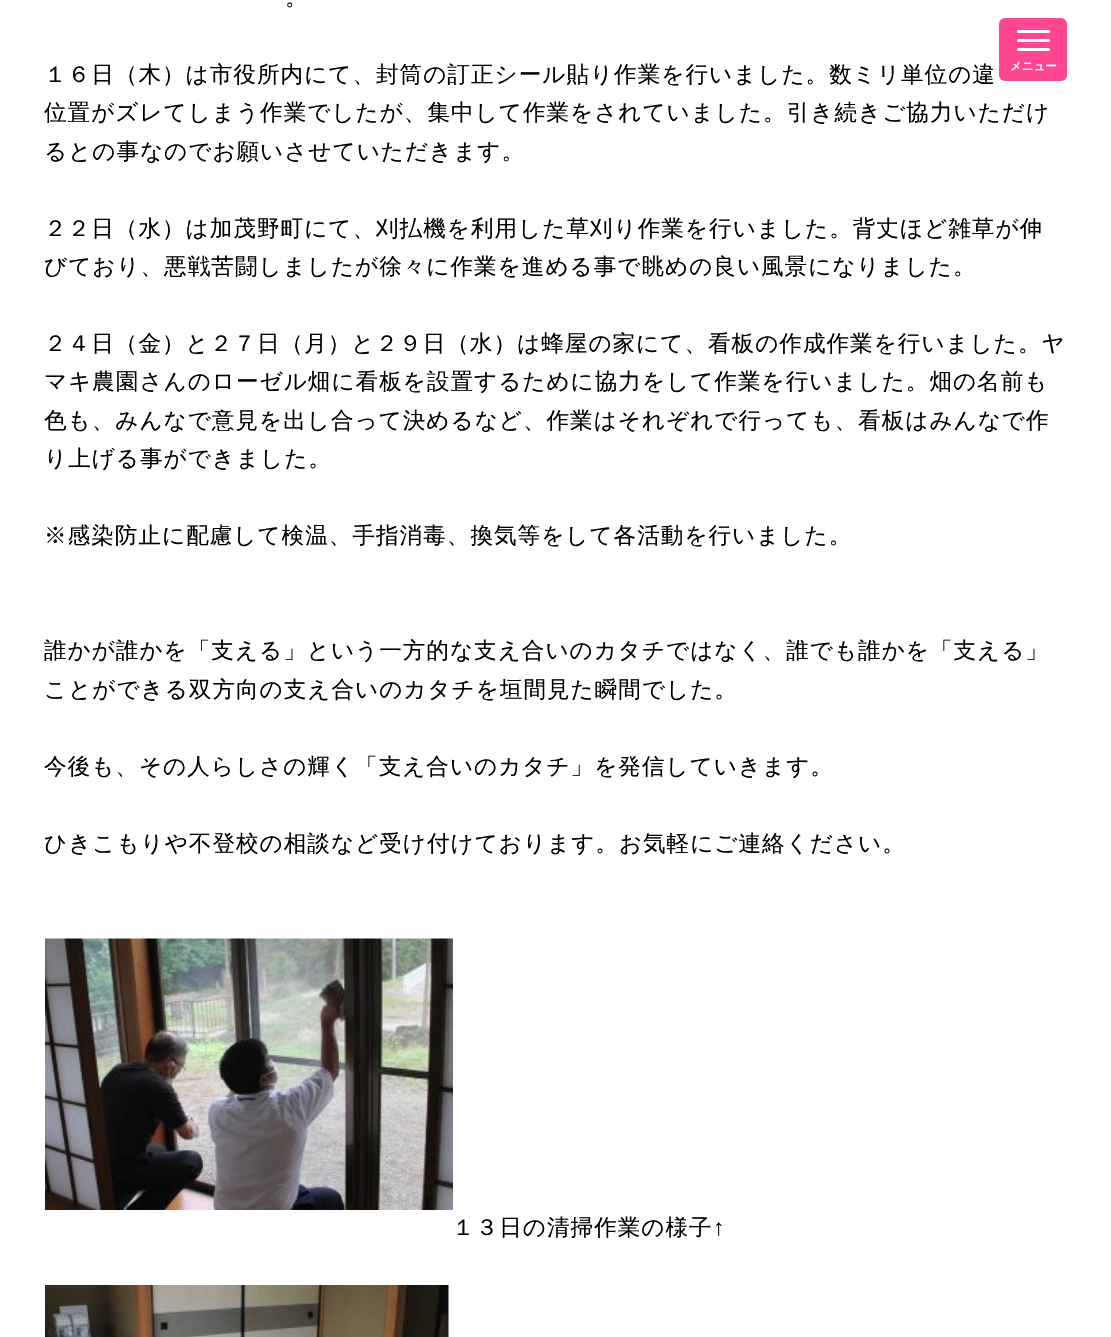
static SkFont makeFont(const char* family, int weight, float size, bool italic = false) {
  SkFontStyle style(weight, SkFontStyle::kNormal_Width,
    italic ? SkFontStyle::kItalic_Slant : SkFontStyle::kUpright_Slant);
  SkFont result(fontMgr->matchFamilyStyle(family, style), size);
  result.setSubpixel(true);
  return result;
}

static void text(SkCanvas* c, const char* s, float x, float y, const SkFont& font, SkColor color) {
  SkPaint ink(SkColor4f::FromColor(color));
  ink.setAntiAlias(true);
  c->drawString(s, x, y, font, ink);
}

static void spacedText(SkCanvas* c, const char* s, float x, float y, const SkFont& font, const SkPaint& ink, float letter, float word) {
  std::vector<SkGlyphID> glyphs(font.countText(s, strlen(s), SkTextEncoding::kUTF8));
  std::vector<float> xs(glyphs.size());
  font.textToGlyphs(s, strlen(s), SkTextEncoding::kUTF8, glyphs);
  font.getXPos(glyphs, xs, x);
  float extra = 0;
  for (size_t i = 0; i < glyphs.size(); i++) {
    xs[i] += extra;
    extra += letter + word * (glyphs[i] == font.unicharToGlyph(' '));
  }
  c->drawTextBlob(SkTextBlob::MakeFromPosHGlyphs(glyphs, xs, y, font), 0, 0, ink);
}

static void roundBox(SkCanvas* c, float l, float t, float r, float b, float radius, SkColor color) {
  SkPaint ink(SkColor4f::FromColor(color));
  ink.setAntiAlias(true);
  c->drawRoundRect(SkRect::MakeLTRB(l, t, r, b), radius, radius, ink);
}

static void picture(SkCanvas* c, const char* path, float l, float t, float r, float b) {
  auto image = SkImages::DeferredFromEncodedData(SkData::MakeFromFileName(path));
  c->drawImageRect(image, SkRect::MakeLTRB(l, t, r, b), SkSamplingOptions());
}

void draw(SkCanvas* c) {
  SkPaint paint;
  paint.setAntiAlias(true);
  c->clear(0xffffffff);
  SkFont face1 = makeFont("WenQuanYi Zen Hei", 500, 22.6f);
  paint.setColor(0xff000000);
  spacedText(c, "。", 285, 5, face1, paint, 1, 0);
  spacedText(c, "１６日（木）は市役所内にて、封筒の訂正シール貼り作業を行いました。数ミリ単位の違", 44, 82, face1, paint, 1, 0);
  spacedText(c, "位置がズレてしまう作業でしたが、集中して作業をされていました。引き続きご協力いただけ", 44, 120, face1, paint, 1, 0);
  spacedText(c, "るとの事なのでお願いさせていただきます。", 44, 159, face1, paint, 1, 0);
  spacedText(c, "２２日（水）は加茂野町にて、刈払機を利用した草刈り作業を行いました。背丈ほど雑草が伸", 44, 236, face1, paint, 1, 0);
  spacedText(c, "びており、悪戦苦闘しましたが徐々に作業を進める事で眺めの良い風景になりました。", 44, 274, face1, paint, 1, 0);
  spacedText(c, "２４日（金）と２７日（月）と２９日（水）は蜂屋の家にて、看板の作成作業を行いました。ヤ", 44, 351, face1, paint, 1, 0);
  spacedText(c, "マキ農園さんのローゼル畑に看板を設置するために協力をして作業を行いました。畑の名前も", 44, 389, face1, paint, 1, 0);
  spacedText(c, "色も、みんなで意見を出し合って決めるなど、作業はそれぞれで行っても、看板はみんなで作", 44, 428, face1, paint, 1, 0);
  spacedText(c, "り上げる事ができました。", 44, 466, face1, paint, 1, 0);
  spacedText(c, "※感染防止に配慮して検温、手指消毒、換気等をして各活動を行いました。", 44, 543, face1, paint, 1, 0);
  spacedText(c, "誰かが誰かを「支える」という一方的な支え合いのカタチではなく、誰でも誰かを「支える」", 44, 658, face1, paint, 1, 0);
  spacedText(c, "ことができる双方向の支え合いのカタチを垣間見た瞬間でした。", 44, 697, face1, paint, 1, 0);
  spacedText(c, "今後も、その人らしさの輝く「支え合いのカタチ」を発信していきます。", 44, 774, face1, paint, 1, 0);
  spacedText(c, "ひきこもりや不登校の相談など受け付けております。お気軽にご連絡ください。", 44, 851, face1, paint, 1, 0);
  picture(c, "img_01.png", 45, 938, 453, 1210);
  spacedText(c, "１３日の清掃作業の様子", 452, 1235, face1, paint, 1, 0);
  SkFont face2 = makeFont("Liberation Sans", 400, 22.6f);
  spacedText(c, "↑", 713, 1235, face2, paint, 1, 0);
  picture(c, "img_02.png", 45, 1285, 449, 1337);
  roundBox(c, 999, 18, 1067, 81, 6, 0xffff4690);
  roundBox(c, 1017, 30, 1050, 33, 1.5f, 0xffffffff);
  roundBox(c, 1017, 39, 1050, 42, 1.5f, 0xffffffff);
  roundBox(c, 1017, 48, 1050, 51, 1.5f, 0xffffffff);
  SkFont face3 = makeFont("WenQuanYi Zen Hei", 700, 11.5f);
  text(c, "メニュー", 1010, 70, face3, 0xffffffff);
}
